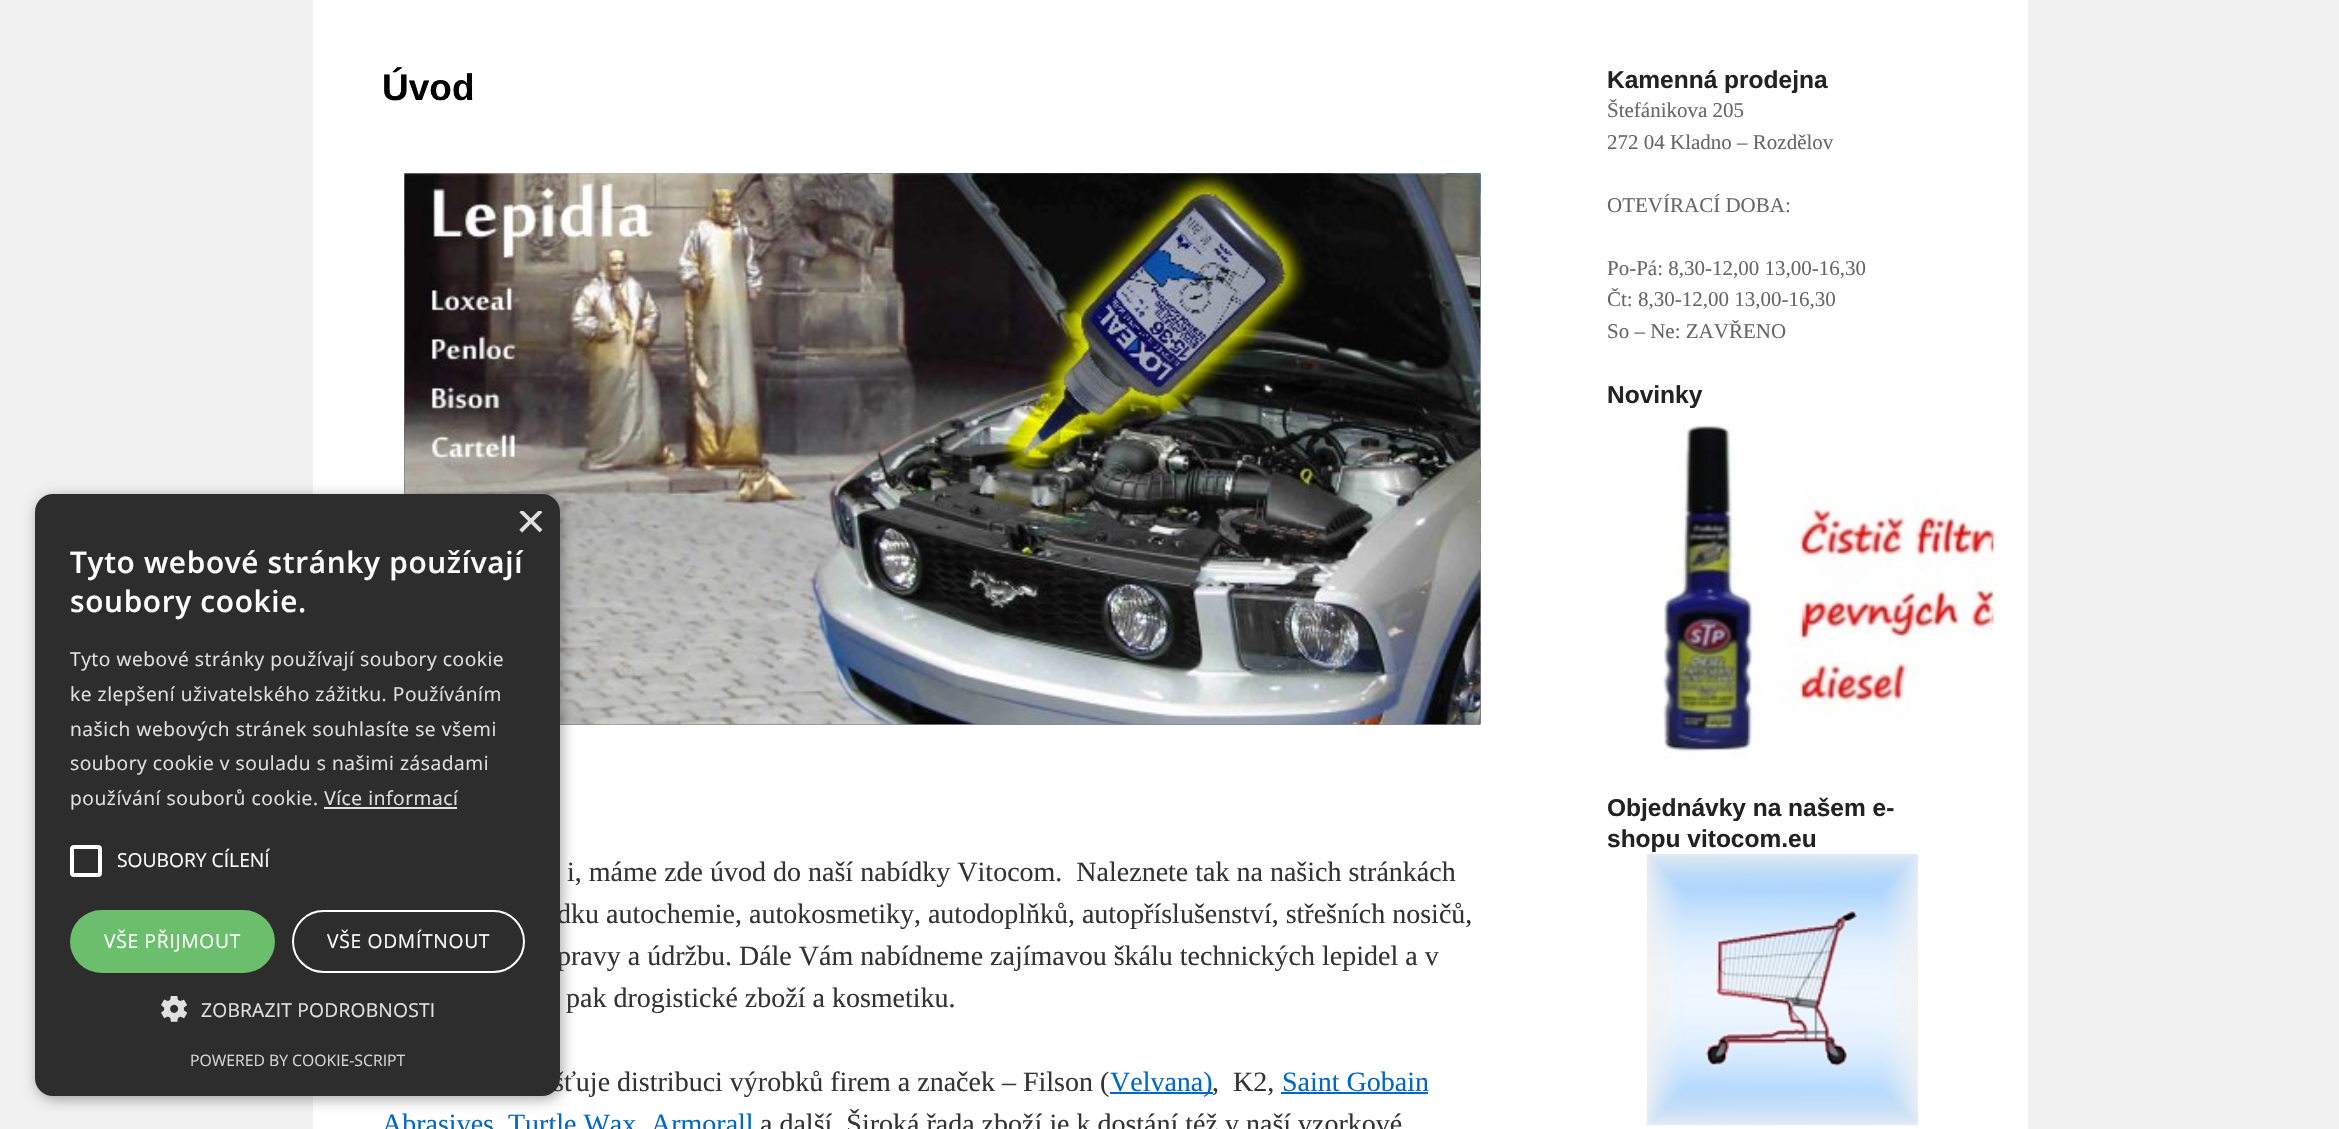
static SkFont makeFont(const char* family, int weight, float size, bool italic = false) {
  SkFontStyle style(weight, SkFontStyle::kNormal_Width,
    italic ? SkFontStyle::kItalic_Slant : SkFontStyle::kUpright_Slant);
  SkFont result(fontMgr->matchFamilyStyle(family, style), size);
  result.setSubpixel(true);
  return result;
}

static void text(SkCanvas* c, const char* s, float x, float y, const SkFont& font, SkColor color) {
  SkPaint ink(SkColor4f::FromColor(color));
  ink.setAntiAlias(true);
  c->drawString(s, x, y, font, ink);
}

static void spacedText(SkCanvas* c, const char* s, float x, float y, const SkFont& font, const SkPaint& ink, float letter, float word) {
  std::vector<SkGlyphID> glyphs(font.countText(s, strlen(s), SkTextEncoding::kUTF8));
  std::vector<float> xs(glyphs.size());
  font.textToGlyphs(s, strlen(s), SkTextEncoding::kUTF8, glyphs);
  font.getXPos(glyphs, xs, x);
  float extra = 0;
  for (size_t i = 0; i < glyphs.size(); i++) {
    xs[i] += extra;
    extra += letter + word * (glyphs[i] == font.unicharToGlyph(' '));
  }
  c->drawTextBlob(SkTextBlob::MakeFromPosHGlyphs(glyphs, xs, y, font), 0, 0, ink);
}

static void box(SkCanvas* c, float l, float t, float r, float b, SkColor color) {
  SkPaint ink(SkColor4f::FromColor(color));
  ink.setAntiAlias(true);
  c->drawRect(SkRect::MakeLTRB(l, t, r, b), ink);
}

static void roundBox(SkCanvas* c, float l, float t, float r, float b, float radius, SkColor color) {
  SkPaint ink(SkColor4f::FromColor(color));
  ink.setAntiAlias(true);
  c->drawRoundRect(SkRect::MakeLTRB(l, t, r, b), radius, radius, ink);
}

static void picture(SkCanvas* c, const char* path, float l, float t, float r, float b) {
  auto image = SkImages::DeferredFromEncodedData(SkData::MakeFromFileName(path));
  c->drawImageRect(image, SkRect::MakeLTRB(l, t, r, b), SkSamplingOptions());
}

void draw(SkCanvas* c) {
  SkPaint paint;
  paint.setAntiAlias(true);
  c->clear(0xfff1f1f1);
  box(c, 313, 0, 2028, 1129, 0xffffffff);
  picture(c, "img_02.png", 404, 173, 1481, 725);
  picture(c, "img_03.png", 404, 173, 1481, 725);
  picture(c, "img_04.png", 404, 173, 1481, 725);
  picture(c, "img_05.png", 404, 173, 1481, 725);
  picture(c, "img_06.png", 404, 173, 1481, 725);
  picture(c, "img_07.png", 404, 173, 1481, 725);
  paint.setColor(0x59000000);
  paint.setMaskFilter(SkMaskFilter::MakeBlur(kNormal_SkBlurStyle, 7));
  c->drawRoundRect(SkRect::MakeLTRB(37, 497, 562, 1099), 18, 18, paint);
  paint.setMaskFilter(nullptr);
  SkFont face1 = makeFont("Liberation Serif", 400, 28);
  text(c, "dku autochemie, autokosmetiky, autodoplňků, autopříslušenství, střešních nosičů,", 557, 923, face1, 0xff333333);
  text(c, "pravy a údržbu. Dále Vám nabídneme zajímavou škálu technických lepidel a v", 557, 965, face1, 0xff333333);
  text(c, "šťuje distribuci výrobků firem a značek – Filson (", 553, 1091, face1, 0xff333333);
  roundBox(c, 35, 494, 560, 1096, 18, 0xff2d2d2d);
  c->save();
  c->clipRect(SkRect::MakeLTRB(516, 511, 543, 537));
  SkFont face2 = makeFont("Liberation Sans", 400, 51);
  text(c, "×", 516, 538, face2, 0xffe0e0e0);
  c->restore();
  SkFont face3 = makeFont("Open Sans", 600, 29.75f);
  paint.setColor(0xffffffff);
  spacedText(c, "Tyto webové stránky používají", 70, 573, face3, paint, 0.7f, 0);
  spacedText(c, "soubory cookie.", 70, 612, face3, paint, 0.7f, 0);
  SkFont face4 = makeFont("Open Sans", 400, 19.25f);
  paint.setColor(0xffe0e0e0);
  spacedText(c, "Tyto webové stránky používají soubory cookie", 70, 666, face4, paint, 0.55f, 0);
  spacedText(c, "ke zlepšení uživatelského zážitku. Používáním", 70, 701, face4, paint, 0.55f, 0);
  spacedText(c, "našich webových stránek souhlasíte se všemi", 70, 736, face4, paint, 0.55f, 0);
  spacedText(c, "soubory cookie v souladu s našimi zásadami", 70, 770, face4, paint, 0.55f, 0);
  spacedText(c, "používání souborů cookie. Více informací", 70, 805, face4, paint, 0.55f, 0);
  box(c, 324, 807, 457, 809, 0xffe0e0e0);
  paint.setStyle(SkPaint::kStroke_Style);
  paint.setStrokeWidth(4);
  paint.setColor(0xffffffff);
  c->drawRoundRect(SkRect::MakeLTRB(72, 847, 100, 875), 2, 2, paint);
  text(c, "SOUBORY CÍLENÍ", 117, 867, face4, 0xffffffff);
  roundBox(c, 70, 910, 275, 973, 31.5f, 0xff6bbe6b);
  paint.setStyle(SkPaint::kFill_Style);
  spacedText(c, "VŠE PŘIJMOUT", 104, 948, face4, paint, 0.7f, 0);
  paint.setStyle(SkPaint::kStroke_Style);
  paint.setStrokeWidth(2);
  c->drawRoundRect(SkRect::MakeLTRB(293, 911, 524, 972), 30.5f, 30.5f, paint);
  paint.setStyle(SkPaint::kFill_Style);
  spacedText(c, "VŠE ODMÍTNOUT", 327, 948, face4, paint, 0.7f, 0);
  picture(c, "img_01.png", 161, 996, 187, 1022);
  paint.setColor(0xffe0e0e0);
  spacedText(c, "ZOBRAZIT PODROBNOSTI", 201, 1017, face4, paint, 0.2f, 0);
  SkFont face5 = makeFont("Open Sans", 400, 15.75f);
  text(c, "POWERED BY COOKIE-SCRIPT", 190, 1066, face5, 0xffd5d5d5);
  SkFont face6 = makeFont("Liberation Sans", 700, 37);
  text(c, "Úvod", 382, 100, face6, 0xff000000);
  text(c, "i, máme zde úvod do naší nabídky Vitocom.  Naleznete tak na našich stránkách", 567, 881, face1, 0xff333333);
  text(c, "pak drogistické zboží a kosmetiku.", 566, 1007, face1, 0xff333333);
  box(c, 1110, 1092, 1213, 1094, 0xff0066cc);
  text(c, "Velvana)", 1110, 1091, face1, 0xff0066cc);
  text(c, ",  K2,", 1212, 1091, face1, 0xff333333);
  text(c, "Saint Gobain", 1282, 1091, face1, 0xff0066cc);
  box(c, 1281, 1092, 1428, 1094, 0xff0066cc);
  text(c, "Abrasives", 382, 1133, face1, 0xff0066cc);
  text(c, "Turtle Wax", 508, 1133, face1, 0xff0066cc);
  text(c, "Armorall", 651, 1133, face1, 0xff0066cc);
  text(c, "a další. Široká řada zboží je k dostání též v naší vzorkové", 760, 1133, face1, 0xff333333);
  SkFont face7 = makeFont("Liberation Sans", 700, 24.5f);
  text(c, "Kamenná prodejna", 1607, 88, face7, 0xff222222);
  SkFont face8 = makeFont("Liberation Serif", 400, 21);
  text(c, "Štefánikova 205", 1607, 117, face8, 0xff666666);
  text(c, "272 04 Kladno – Rozdělov", 1607, 149, face8, 0xff666666);
  text(c, "OTEVÍRACÍ DOBA:", 1607, 212, face8, 0xff666666);
  text(c, "Po-Pá: 8,30-12,00 13,00-16,30", 1607, 275, face8, 0xff666666);
  text(c, "Čt: 8,30-12,00 13,00-16,30", 1607, 306, face8, 0xff666666);
  text(c, "So – Ne: ZAVŘENO", 1607, 338, face8, 0xff666666);
  text(c, "Novinky", 1607, 403, face7, 0xff222222);
  picture(c, "img_08.png", 1662, 425, 1994, 759);
  text(c, "Objednávky na našem e-", 1607, 816, face7, 0xff222222);
  text(c, "shopu vitocom.eu", 1607, 847, face7, 0xff222222);
  picture(c, "img_09.png", 1646, 854, 1918, 1126);
}
